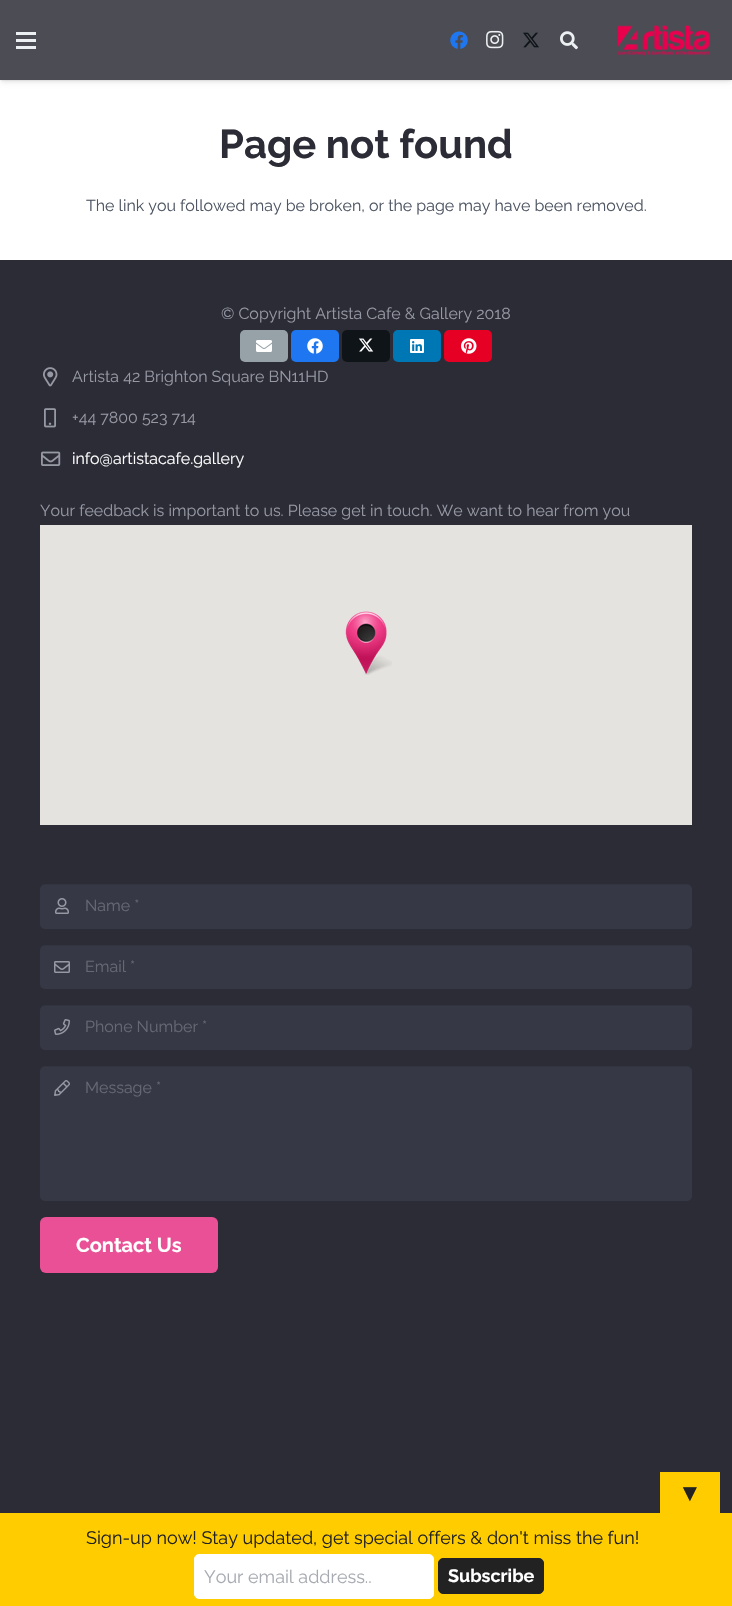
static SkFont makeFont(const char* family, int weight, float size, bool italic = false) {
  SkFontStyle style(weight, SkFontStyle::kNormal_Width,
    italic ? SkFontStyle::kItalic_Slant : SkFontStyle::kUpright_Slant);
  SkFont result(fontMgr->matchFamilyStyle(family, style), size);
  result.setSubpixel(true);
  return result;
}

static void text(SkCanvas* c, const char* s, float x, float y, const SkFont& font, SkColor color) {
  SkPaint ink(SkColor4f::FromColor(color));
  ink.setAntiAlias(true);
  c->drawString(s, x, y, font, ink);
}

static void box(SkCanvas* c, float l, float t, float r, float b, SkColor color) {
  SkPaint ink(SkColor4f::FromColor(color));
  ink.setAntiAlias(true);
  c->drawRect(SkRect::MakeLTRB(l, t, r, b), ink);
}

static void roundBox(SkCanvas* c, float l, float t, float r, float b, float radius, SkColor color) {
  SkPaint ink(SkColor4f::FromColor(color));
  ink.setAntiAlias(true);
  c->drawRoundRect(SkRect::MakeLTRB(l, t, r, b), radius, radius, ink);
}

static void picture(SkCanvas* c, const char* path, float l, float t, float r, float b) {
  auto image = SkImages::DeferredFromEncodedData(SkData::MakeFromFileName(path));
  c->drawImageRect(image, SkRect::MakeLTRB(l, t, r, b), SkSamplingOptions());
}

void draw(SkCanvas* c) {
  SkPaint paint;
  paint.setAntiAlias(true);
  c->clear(0xff2b2c36);
  box(c, 0, 80, 732, 260, 0xffffffff);
  paint.setColor(0x0d000000);
  paint.setMaskFilter(SkMaskFilter::MakeBlur(kNormal_SkBlurStyle, 0.5f));
  c->drawRect(SkRect::MakeLTRB(1, 3, 731, 81), paint);
  paint.setMaskFilter(nullptr);
  paint.setColor(0x1a000000);
  paint.setMaskFilter(SkMaskFilter::MakeBlur(kNormal_SkBlurStyle, 2.5f));
  c->drawRect(SkRect::MakeLTRB(1, 4, 731, 82), paint);
  paint.setMaskFilter(nullptr);
  box(c, 0, 0, 732, 80, 0xff4b4c54);
  box(c, 16, 39, 36, 42, 0xffedf0f2);
  box(c, 16, 32, 36, 35, 0xffedf0f2);
  box(c, 16, 46, 36, 49, 0xffedf0f2);
  picture(c, "img_01.png", 450, 31, 468, 49);
  picture(c, "img_02.png", 486, 30, 504, 49);
  picture(c, "img_03.png", 523, 32, 539, 48);
  picture(c, "img_04.png", 560, 31, 578, 50);
  picture(c, "img_05.png", 617, 25, 710, 56);
  SkFont face1 = makeFont("Raleway", 700, 40);
  text(c, "Page not found", 219, 158, face1, 0xff2b2c36);
  SkFont face2 = makeFont("Raleway", 100, 16);
  text(c, "The link you followed may be broken, or the page may have been removed.", 86, 211, face2, 0xff4e5663);
  text(c, "© Copyright Artista Cafe & Gallery 2018", 221, 319, face2, 0xff9698a3);
  roundBox(c, 240, 330, 288, 362, 5, 0xff96a2a8);
  picture(c, "img_06.png", 256, 340, 272, 352);
  roundBox(c, 291, 330, 339, 362, 5, 0xff1e77f0);
  picture(c, "img_07.png", 307, 338, 323, 354);
  roundBox(c, 342, 330, 390, 362, 5, 0xff0f1419);
  picture(c, "img_08.png", 359, 338, 374, 352);
  roundBox(c, 393, 330, 441, 362, 5, 0xff0077b5);
  picture(c, "img_09.png", 410, 339, 424, 353);
  roundBox(c, 444, 330, 492, 362, 5, 0xffe60023);
  picture(c, "img_10.png", 461, 338, 477, 354);
  picture(c, "img_11.png", 43, 367, 58, 387);
  text(c, "Artista 42 Brighton Square BN11HD", 72, 382, face2, 0xff9698a3);
  picture(c, "img_12.png", 44, 408, 56, 428);
  text(c, "+44 7800 523 714", 72, 423, face2, 0xff9698a3);
  picture(c, "img_13.png", 41, 451, 61, 466);
  text(c, "info@artistacafe.gallery", 72, 464, face2, 0xffffffff);
  text(c, "Your feedback is important to us. Please get in touch. We want to hear from you", 40, 516, face2, 0xff9698a3);
  box(c, 40, 525, 692, 825, 0xffe5e3df);
  picture(c, "img_14.png", 345, 611, 392, 675);
  roundBox(c, 40, 884, 692, 929, 5, 0xff363845);
  picture(c, "img_15.png", 55, 898, 69, 914);
  paint.setColor(0x14000000);
  c->drawPath(SkPathBuilder().moveTo(45, 885).lineTo(687, 885).cubicTo(690, 885, 692, 887, 692, 890).lineTo(692, 889).cubicTo(692, 886, 690, 884, 687, 884).lineTo(45, 884).cubicTo(42, 884, 40, 886, 40, 889).lineTo(40, 890).cubicTo(40, 887, 42, 885, 45, 885).close().detach(), paint);
  text(c, "Name *", 85, 911, face2, 0xff666874);
  roundBox(c, 40, 945, 692, 989, 5, 0xff363845);
  picture(c, "img_16.png", 54, 961, 70, 973);
  c->drawPath(SkPathBuilder().moveTo(45, 946).lineTo(687, 946).cubicTo(690, 946, 692, 948, 692, 951).lineTo(692, 950).cubicTo(692, 947, 690, 945, 687, 945).lineTo(45, 945).cubicTo(42, 945, 40, 947, 40, 950).lineTo(40, 951).cubicTo(40, 948, 42, 946, 45, 946).close().detach(), paint);
  text(c, "Email *", 85, 972, face2, 0xff666874);
  roundBox(c, 40, 1005, 692, 1050, 5, 0xff363845);
  picture(c, "img_17.png", 54, 1019, 70, 1035);
  c->drawPath(SkPathBuilder().moveTo(45, 1006).lineTo(687, 1006).cubicTo(690, 1006, 692, 1008, 692, 1011).lineTo(692, 1010).cubicTo(692, 1007, 690, 1005, 687, 1005).lineTo(45, 1005).cubicTo(42, 1005, 40, 1007, 40, 1010).lineTo(40, 1011).cubicTo(40, 1008, 42, 1006, 45, 1006).close().detach(), paint);
  text(c, "Phone Number *", 85, 1032, face2, 0xff666874);
  roundBox(c, 40, 1066, 692, 1201, 5, 0xff363845);
  picture(c, "img_18.png", 54, 1080, 70, 1096);
  c->drawPath(SkPathBuilder().moveTo(45, 1067).lineTo(687, 1067).cubicTo(690, 1067, 692, 1069, 692, 1072).lineTo(692, 1071).cubicTo(692, 1068, 690, 1066, 687, 1066).lineTo(45, 1066).cubicTo(42, 1066, 40, 1068, 40, 1071).lineTo(40, 1072).cubicTo(40, 1069, 42, 1067, 45, 1067).close().detach(), paint);
  text(c, "Message *", 85, 1093, face2, 0xff666874);
  roundBox(c, 40, 1217, 218, 1273, 6, 0xffe95095);
  SkFont face3 = makeFont("Raleway", 700, 20);
  text(c, "Contact Us", 76, 1252, face3, 0xffffffff);
  box(c, 660, 1472, 720, 1513, 0xffffcc00);
  SkFont face4 = makeFont("Liberation Sans", 400, 24);
  text(c, "▼", 678, 1501, face4, 0xff222222);
  box(c, 0, 1513, 732, 1606, 0xffffcc00);
  SkFont face5 = makeFont("Raleway", 100, 18);
  text(c, "Sign-up now! Stay updated, get special offers & don't miss the fun!", 86, 1544, face5, 0xff222222);
  paint.setColor(0xffffffff);
  c->drawRoundRect(SkRect::MakeLTRB(194.5f, 1554.5f, 433.5f, 1598.5f), 4.5f, 4.5f, paint);
  paint.setStyle(SkPaint::kStroke_Style);
  paint.setStrokeWidth(1);
  c->drawRoundRect(SkRect::MakeLTRB(194.5f, 1554.5f, 433.5f, 1598.5f), 4.5f, 4.5f, paint);
  text(c, "Your email address..", 204, 1583, face5, 0xffa7abb1);
  paint.setStyle(SkPaint::kFill_Style);
  paint.setColor(0xff222222);
  c->drawRoundRect(SkRect::MakeLTRB(438.5f, 1558.5f, 543.5f, 1593.5f), 4.5f, 4.5f, paint);
  paint.setStyle(SkPaint::kStroke_Style);
  c->drawRoundRect(SkRect::MakeLTRB(438.5f, 1558.5f, 543.5f, 1593.5f), 4.5f, 4.5f, paint);
  SkFont face6 = makeFont("Raleway", 700, 18);
  text(c, "Subscribe", 448, 1582, face6, 0xffffffff);
}
